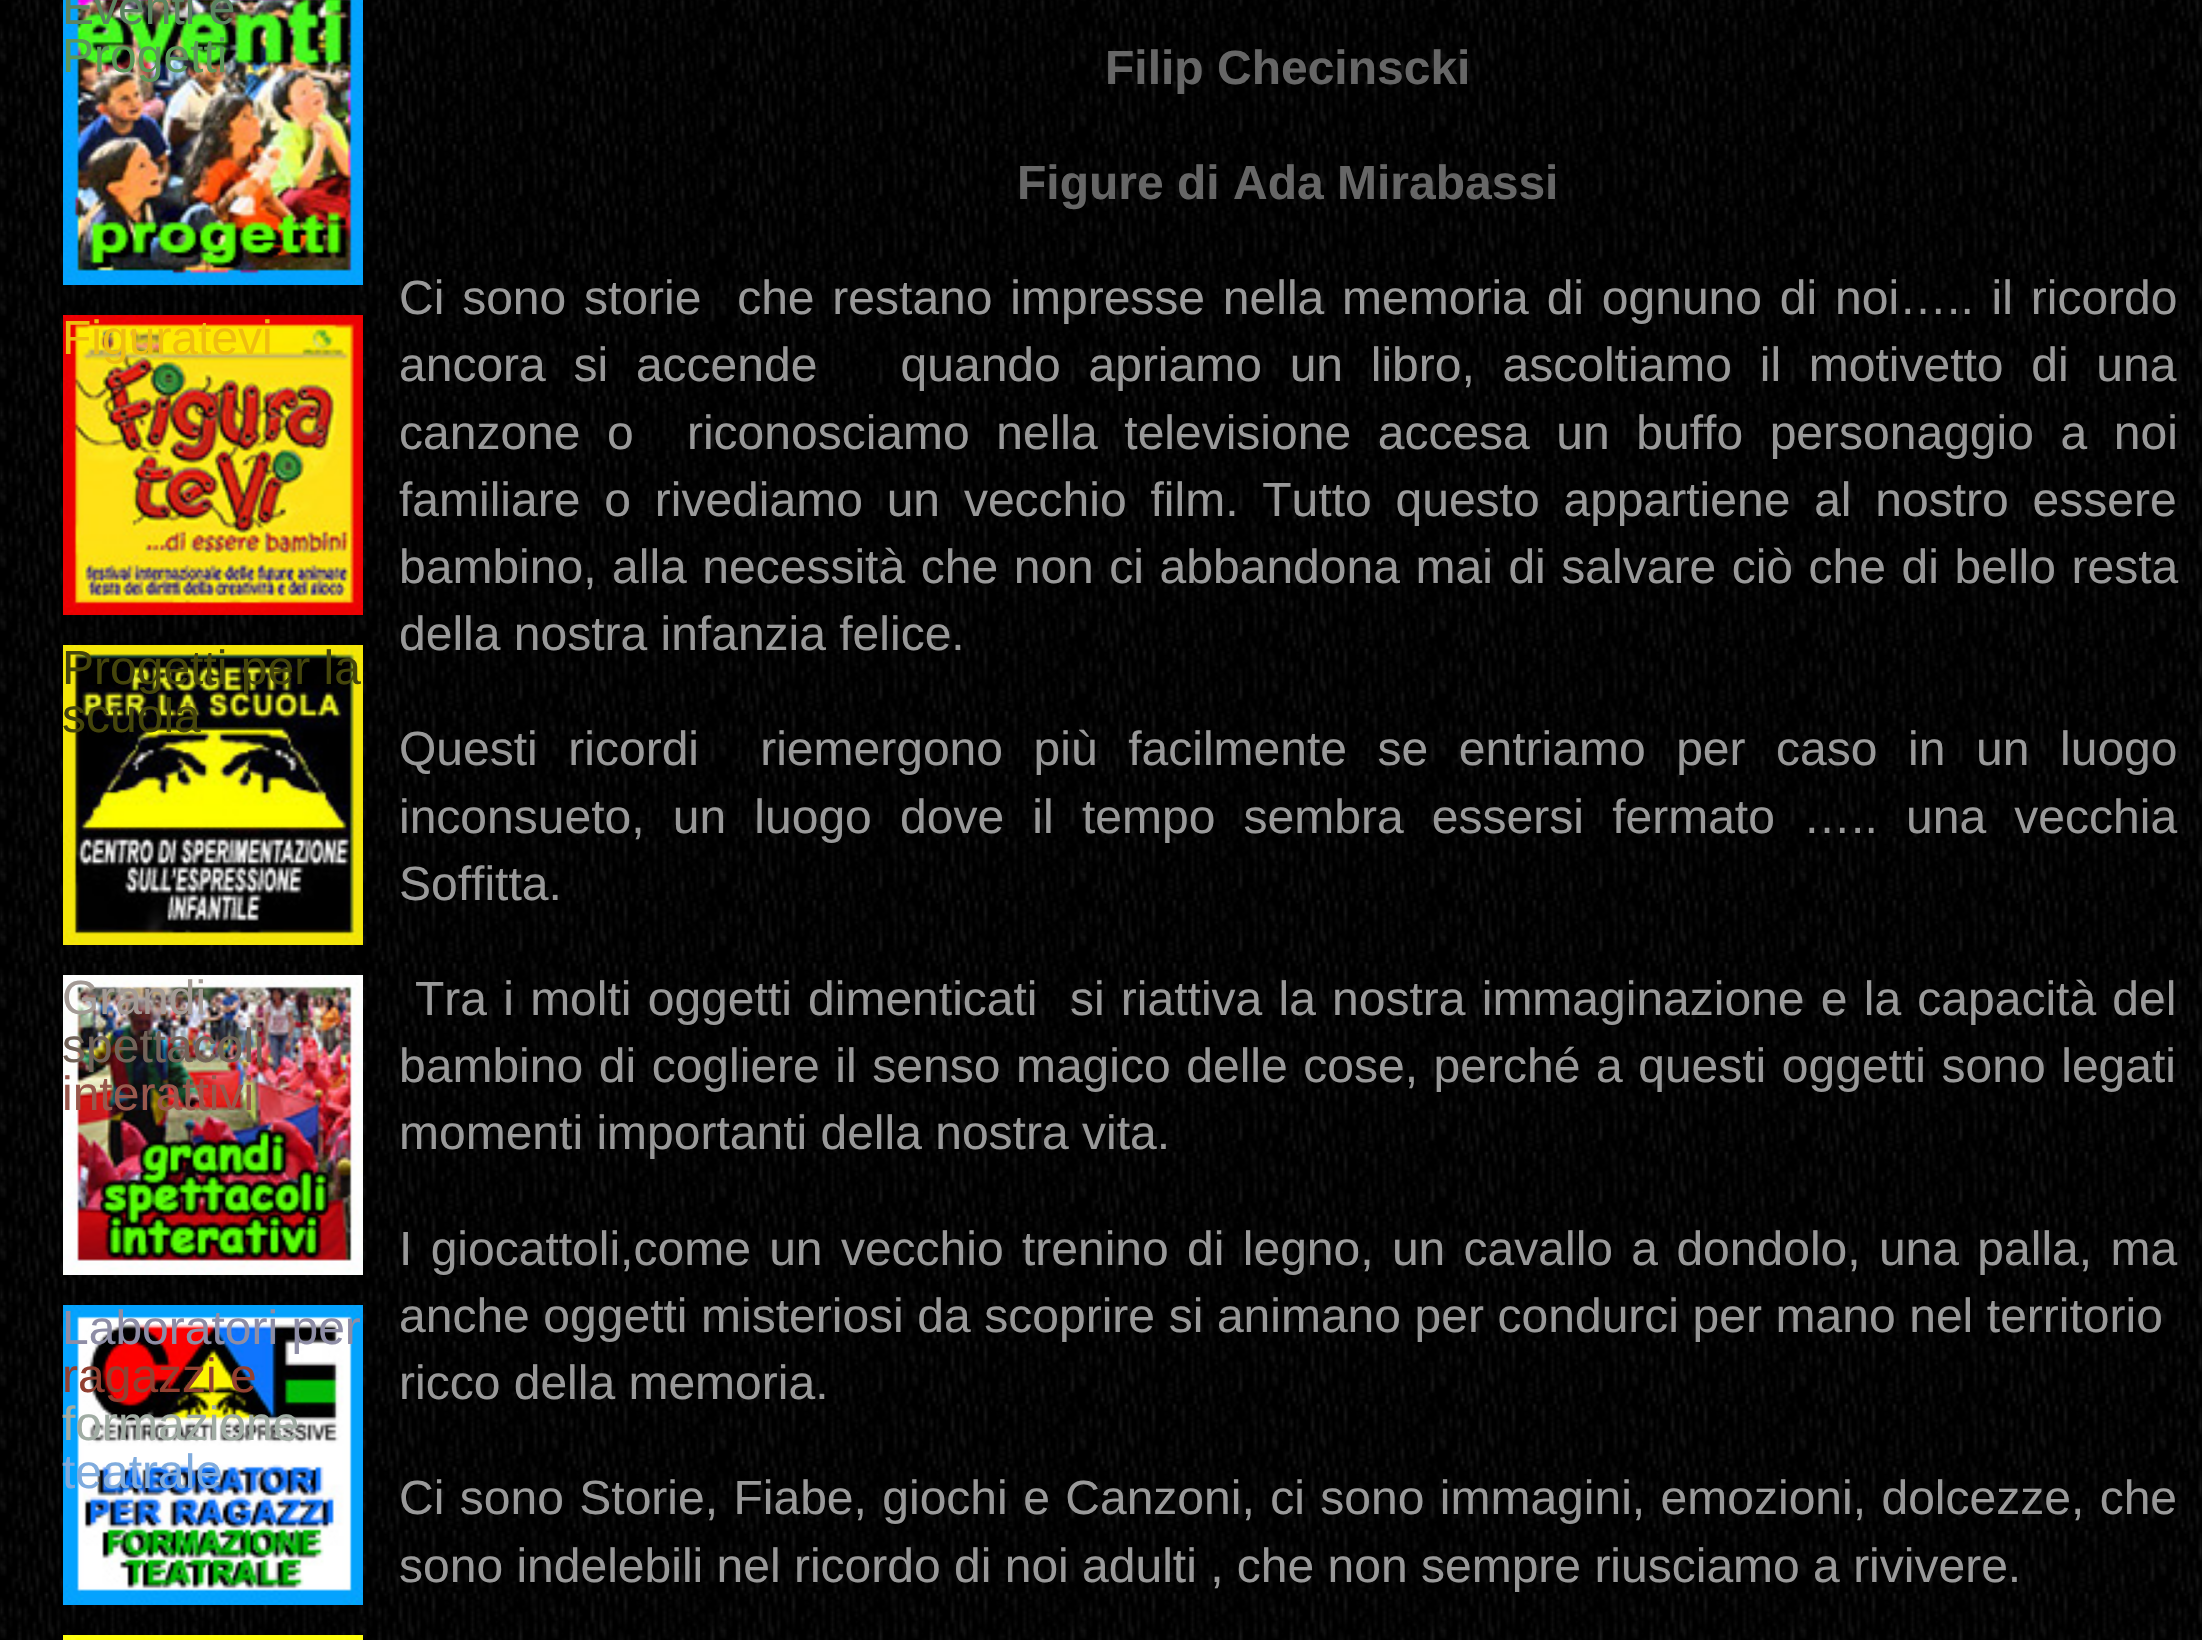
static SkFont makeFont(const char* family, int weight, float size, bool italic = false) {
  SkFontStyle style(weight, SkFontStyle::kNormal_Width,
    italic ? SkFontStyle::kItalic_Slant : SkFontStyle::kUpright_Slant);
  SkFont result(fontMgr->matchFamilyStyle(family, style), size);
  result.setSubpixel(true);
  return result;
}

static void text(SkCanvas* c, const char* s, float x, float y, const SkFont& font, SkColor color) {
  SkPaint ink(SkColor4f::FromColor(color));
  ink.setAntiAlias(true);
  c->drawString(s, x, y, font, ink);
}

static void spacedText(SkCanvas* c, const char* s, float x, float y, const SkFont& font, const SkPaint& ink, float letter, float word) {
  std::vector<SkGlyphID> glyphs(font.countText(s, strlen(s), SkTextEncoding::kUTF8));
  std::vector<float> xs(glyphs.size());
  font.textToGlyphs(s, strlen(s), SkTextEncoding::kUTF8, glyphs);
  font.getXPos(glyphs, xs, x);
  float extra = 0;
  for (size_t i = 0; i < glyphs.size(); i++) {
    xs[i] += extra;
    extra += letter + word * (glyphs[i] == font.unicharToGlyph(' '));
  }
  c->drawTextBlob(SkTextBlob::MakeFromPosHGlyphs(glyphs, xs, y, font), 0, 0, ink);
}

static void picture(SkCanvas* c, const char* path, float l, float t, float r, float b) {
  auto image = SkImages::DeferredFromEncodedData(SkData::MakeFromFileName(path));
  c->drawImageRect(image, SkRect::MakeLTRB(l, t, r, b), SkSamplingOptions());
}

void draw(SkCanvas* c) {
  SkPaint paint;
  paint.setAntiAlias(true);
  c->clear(0xffffffff);
  picture(c, "img_01.png", 0, 0, 2202, 1640);
  picture(c, "img_02.png", 63, 0, 363, 285);
  SkFont face1 = makeFont("Liberation Sans", 400, 48);
  text(c, "Eventi e", 62, 24, face1, 0xff5b8461);
  text(c, "Progetti", 62, 72, face1, 0xff5b975a);
  picture(c, "img_03.png", 63, 315, 363, 615);
  text(c, "Figuratevi", 62, 354, face1, 0xffeebd0f);
  picture(c, "img_04.png", 63, 645, 363, 945);
  text(c, "Progetti per la", 62, 684, face1, 0xff45450b);
  text(c, "scuola", 62, 732, face1, 0xff45450b);
  picture(c, "img_05.png", 63, 975, 363, 1275);
  text(c, "Grandi", 62, 1014, face1, 0xffa39a95);
  text(c, "spettacoli", 62, 1062, face1, 0xff726359);
  text(c, "interattivi", 62, 1110, face1, 0xff98584d);
  picture(c, "img_06.png", 63, 1305, 363, 1605);
  text(c, "Laboratori per", 62, 1344, face1, 0xff8e8da6);
  text(c, "ragazzi e", 62, 1392, face1, 0xff924031);
  text(c, "formazione", 62, 1440, face1, 0xffa0aca3);
  text(c, "teatrale", 62, 1488, face1, 0xff7fabdd);
  picture(c, "img_07.png", 63, 1635, 363, 1640);
  SkFont face2 = makeFont("Liberation Sans", 700, 48);
  text(c, "Filip Checinscki", 1105, 84, face2, 0xff666666);
  text(c, "Figure di Ada Mirabassi", 1017, 199, face2, 0xff666666);
  paint.setColor(0xff999999);
  spacedText(c, "Ci sono storie  che restano impresse nella memoria di ognuno di noi….. il ricordo", 399, 314, face1, paint, 0, 4.5f);
  spacedText(c, "ancora si accende   quando apriamo un libro, ascoltiamo il motivetto di una", 399, 381, face1, paint, 0, 14.4f);
  spacedText(c, "canzone o  riconosciamo nella televisione accesa un buffo personaggio a noi", 399, 449, face1, paint, 0, 13.25f);
  spacedText(c, "familiare o rivediamo un vecchio film. Tutto questo appartiene al nostro essere", 399, 516, face1, paint, 0, 10.5f);
  spacedText(c, "bambino, alla necessità che non ci abbandona mai di salvare ciò che di bello resta", 399, 583, face1, paint, 0, 2.25f);
  text(c, "della nostra infanzia felice.", 399, 650, face1, 0xff999999);
  spacedText(c, "Questi ricordi  riemergono più facilmente se entriamo per caso in un luogo", 399, 765, face1, paint, 0, 17.25f);
  spacedText(c, "inconsueto, un luogo dove il tempo sembra essersi fermato ….. una vecchia", 399, 833, face1, paint, 0, 14.9f);
  text(c, "Soffitta.", 399, 900, face1, 0xff999999);
  spacedText(c, "Tra i molti oggetti dimenticati  si riattiva la nostra immaginazione e la capacità del", 415, 1015, face1, paint, 0, 2.9f);
  spacedText(c, "bambino di cogliere il senso magico delle cose, perché a questi oggetti sono legati", 399, 1082, face1, paint, 0, 2.25f);
  text(c, "momenti importanti della nostra vita.", 399, 1149, face1, 0xff999999);
  spacedText(c, "I giocattoli,come un vecchio trenino di legno, un cavallo a dondolo, una palla, ma", 399, 1265, face1, paint, 0, 5);
  spacedText(c, "anche oggetti misteriosi da scoprire si animano per condurci per mano nel territorio", 399, 1332, face1, paint, 0, 0.25f);
  text(c, "ricco della memoria.", 399, 1399, face1, 0xff999999);
  spacedText(c, "Ci sono Storie, Fiabe, giochi e Canzoni, ci sono immagini, emozioni, dolcezze, che", 399, 1514, face1, paint, 0, 2.1f);
  text(c, "sono indelebili nel ricordo di noi adulti , che non sempre riusciamo a rivivere.", 399, 1582, face1, 0xff999999);
}
